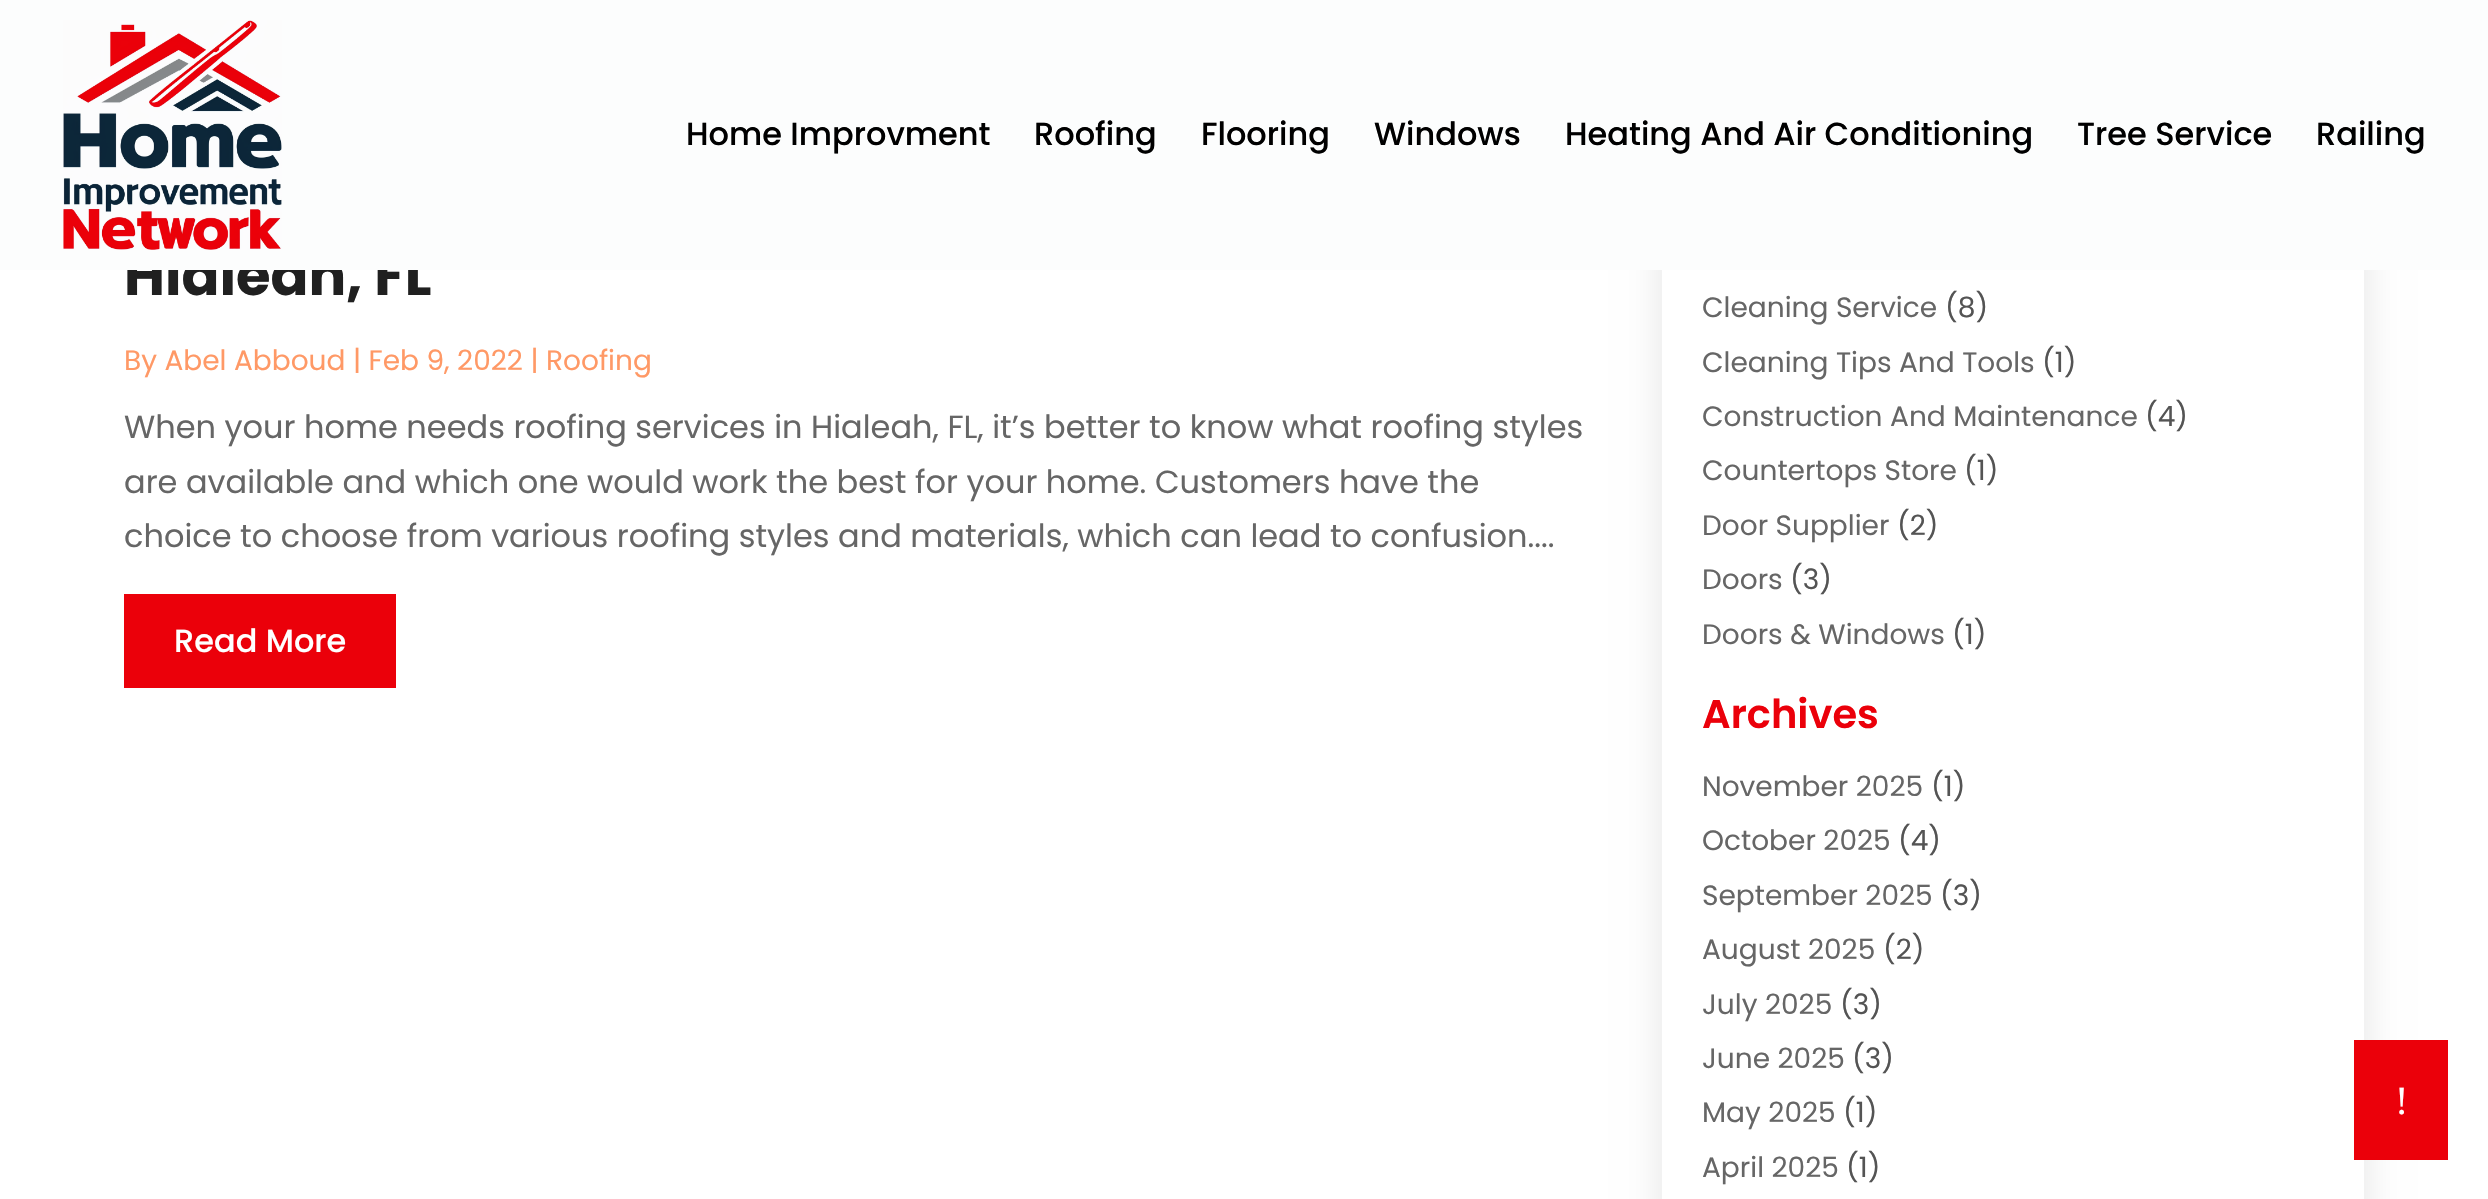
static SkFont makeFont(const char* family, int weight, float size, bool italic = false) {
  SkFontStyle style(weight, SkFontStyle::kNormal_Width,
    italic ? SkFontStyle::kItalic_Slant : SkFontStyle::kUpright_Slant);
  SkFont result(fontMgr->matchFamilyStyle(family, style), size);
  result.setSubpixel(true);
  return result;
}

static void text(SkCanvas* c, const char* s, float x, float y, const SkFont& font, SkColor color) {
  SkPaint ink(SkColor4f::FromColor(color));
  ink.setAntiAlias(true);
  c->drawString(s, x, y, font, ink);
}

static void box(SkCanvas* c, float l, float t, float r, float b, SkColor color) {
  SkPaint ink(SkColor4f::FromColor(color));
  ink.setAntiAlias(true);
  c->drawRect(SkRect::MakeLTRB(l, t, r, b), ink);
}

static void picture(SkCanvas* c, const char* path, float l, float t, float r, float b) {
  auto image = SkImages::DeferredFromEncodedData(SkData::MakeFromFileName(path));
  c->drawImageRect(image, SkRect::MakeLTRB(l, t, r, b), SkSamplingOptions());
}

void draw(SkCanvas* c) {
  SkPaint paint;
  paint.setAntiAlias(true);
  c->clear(0xffffffff);
  SkFont face1 = makeFont("Poppins", 700, 56);
  text(c, "Hialeah, FL", 124, 295, face1, 0xff202020);
  c->save();
  c->clipPath(SkPathBuilder(SkPathFillType::kEvenOdd).moveTo(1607, 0).lineTo(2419, 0).lineTo(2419, 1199).lineTo(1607, 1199).close().moveTo(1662, -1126).lineTo(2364, -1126).lineTo(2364, 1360).lineTo(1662, 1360).close().detach(), true);
  paint.setColor(0x1a000000);
  paint.setMaskFilter(SkMaskFilter::MakeBlur(kNormal_SkBlurStyle, 18));
  c->drawRect(SkRect::MakeLTRB(1662, -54, 2364, 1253), paint);
  paint.setMaskFilter(nullptr);
  c->restore();
  box(c, 0, 0, 2488, 270, 0xfffcfdfd);
  picture(c, "img_01.png", 63, 20, 282, 250);
  SkFont face2 = makeFont("Poppins", 500, 32);
  text(c, "Home Improvment", 686, 145, face2, 0xff000000);
  text(c, "Roofing", 1034, 145, face2, 0xff000000);
  text(c, "Flooring", 1201, 145, face2, 0xff000000);
  text(c, "Windows", 1374, 145, face2, 0xff000000);
  text(c, "Heating And Air Conditioning", 1565, 145, face2, 0xff000000);
  text(c, "Tree Service", 2077, 145, face2, 0xff000000);
  text(c, "Railing", 2316, 145, face2, 0xff000000);
  SkFont face3 = makeFont("Poppins", 400, 28);
  text(c, "By Abel Abboud | Feb 9, 2022 | Roofing", 124, 370, face3, 0xffff9966);
  SkFont face4 = makeFont("Poppins", 400, 32);
  text(c, "When your home needs roofing services in Hialeah, FL, it’s better to know what roofing styles", 124, 438, face4, 0xff666666);
  text(c, "are available and which one would work the best for your home. Customers have the", 124, 493, face4, 0xff666666);
  text(c, "choice to choose from various roofing styles and materials, which can lead to confusion....", 124, 547, face4, 0xff666666);
  box(c, 124, 594, 396, 688, 0xffeb000a);
  text(c, "Read More", 174, 652, face2, 0xffffffff);
  text(c, "Cleaning Service", 1702, 317, face3, 0xff666666);
  text(c, "(8)", 1945, 317, face3, 0xff545454);
  text(c, "Cleaning Tips And Tools", 1702, 372, face3, 0xff666666);
  text(c, "(1)", 2042, 372, face3, 0xff545454);
  text(c, "Construction And Maintenance", 1702, 426, face3, 0xff666666);
  text(c, "(4)", 2145, 426, face3, 0xff545454);
  text(c, "Countertops Store", 1702, 480, face3, 0xff666666);
  text(c, "(1)", 1964, 480, face3, 0xff545454);
  text(c, "Door Supplier", 1702, 535, face3, 0xff666666);
  text(c, "(2)", 1897, 535, face3, 0xff545454);
  text(c, "Doors", 1702, 589, face3, 0xff666666);
  text(c, "(3)", 1790, 589, face3, 0xff545454);
  text(c, "Doors & Windows", 1702, 644, face3, 0xff666666);
  text(c, "(1)", 1952, 644, face3, 0xff545454);
  SkFont face5 = makeFont("Poppins", 600, 40);
  text(c, "Archives", 1702, 728, face5, 0xffeb000a);
  text(c, "November 2025", 1702, 796, face3, 0xff666666);
  text(c, "(1)", 1931, 796, face3, 0xff545454);
  text(c, "October 2025", 1702, 850, face3, 0xff666666);
  text(c, "(4)", 1898, 850, face3, 0xff545454);
  text(c, "September 2025", 1702, 905, face3, 0xff666666);
  text(c, "(3)", 1940, 905, face3, 0xff545454);
  text(c, "August 2025", 1702, 959, face3, 0xff666666);
  text(c, "(2)", 1883, 959, face3, 0xff545454);
  text(c, "July 2025", 1702, 1014, face3, 0xff666666);
  text(c, "(3)", 1840, 1014, face3, 0xff545454);
  text(c, "June 2025", 1702, 1068, face3, 0xff666666);
  text(c, "(3)", 1852, 1068, face3, 0xff545454);
  text(c, "May 2025", 1702, 1122, face3, 0xff666666);
  text(c, "(1)", 1843, 1122, face3, 0xff545454);
  text(c, "April 2025", 1702, 1177, face3, 0xff666666);
  text(c, "(1)", 1846, 1177, face3, 0xff545454);
  box(c, 2354, 1040, 2448, 1160, 0xffeb000a);
  SkFont face6 = makeFont("Liberation Serif", 400, 40);
  text(c, "!", 2395, 1114, face6, 0xffffffff);
}
